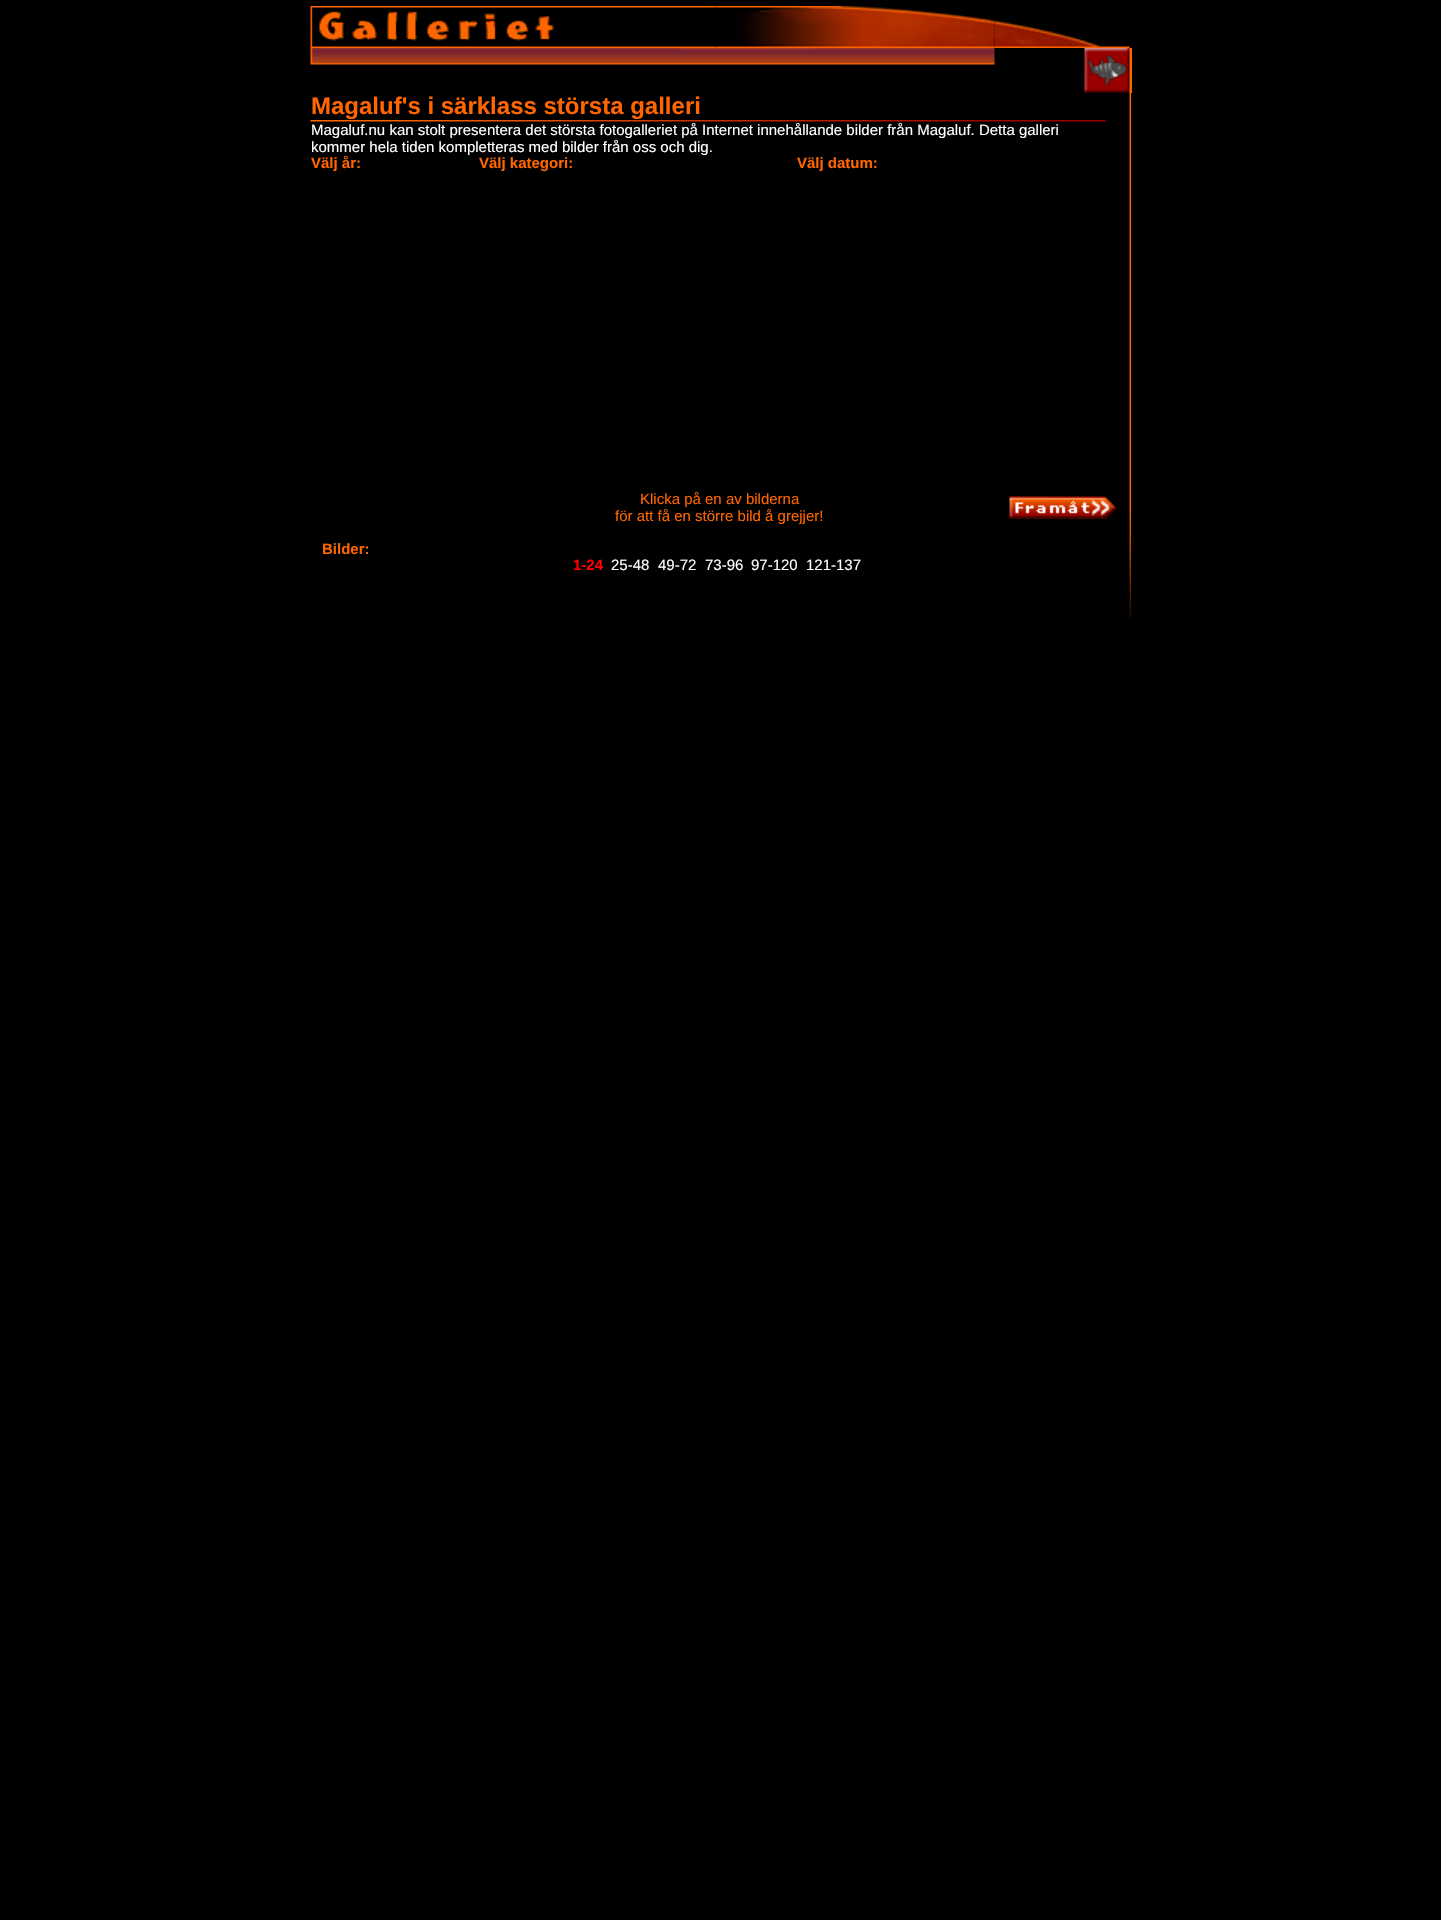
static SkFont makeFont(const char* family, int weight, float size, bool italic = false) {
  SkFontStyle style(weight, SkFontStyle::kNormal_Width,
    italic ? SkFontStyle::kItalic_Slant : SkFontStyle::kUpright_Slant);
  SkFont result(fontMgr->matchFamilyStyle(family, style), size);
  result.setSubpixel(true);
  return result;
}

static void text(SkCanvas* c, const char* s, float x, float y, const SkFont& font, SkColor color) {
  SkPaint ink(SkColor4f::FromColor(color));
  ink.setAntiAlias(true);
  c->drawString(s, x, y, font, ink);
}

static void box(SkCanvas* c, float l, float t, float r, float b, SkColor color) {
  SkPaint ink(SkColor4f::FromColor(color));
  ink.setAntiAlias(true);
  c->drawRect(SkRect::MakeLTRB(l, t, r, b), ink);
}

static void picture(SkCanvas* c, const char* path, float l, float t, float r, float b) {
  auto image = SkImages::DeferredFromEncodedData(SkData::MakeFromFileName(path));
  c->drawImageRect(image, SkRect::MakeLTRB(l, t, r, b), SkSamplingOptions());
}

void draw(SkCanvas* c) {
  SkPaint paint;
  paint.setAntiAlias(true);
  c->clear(0xff000000);
  picture(c, "img_01.png", 310, 6, 716, 48);
  picture(c, "img_02.png", 715, 6, 995, 48);
  picture(c, "img_03.png", 310, 48, 995, 65);
  picture(c, "img_04.png", 994, 20, 1130, 48);
  box(c, 1129, 48, 1132, 93, 0xffff6600);
  picture(c, "img_05.png", 1084, 48, 1130, 93);
  SkFont face1 = makeFont("Liberation Sans", 700, 24);
  text(c, "Magaluf's i särklass största galleri", 311, 114, face1, 0xffff6600);
  picture(c, "img_06.png", 310, 120, 1106, 122);
  SkFont face2 = makeFont("Liberation Sans", 400, 15);
  text(c, "Magaluf.nu kan stolt presentera det största fotogalleriet på Internet innehållande bilder från Magaluf. Detta galleri", 311, 135, face2, 0xffffffff);
  text(c, "kommer hela tiden kompletteras med bilder från oss och dig.", 311, 152, face2, 0xffffffff);
  SkFont face3 = makeFont("Liberation Sans", 700, 15);
  text(c, "Välj år:", 311, 168, face3, 0xffff6600);
  text(c, "Välj kategori:", 479, 168, face3, 0xffff6600);
  text(c, "Välj datum:", 797, 168, face3, 0xffff6600);
  text(c, "Klicka på en av bilderna", 640, 504, face2, 0xffff6600);
  text(c, "för att få en större bild å grejjer!", 615, 521, face2, 0xffff6600);
  picture(c, "img_07.png", 1009, 496, 1117, 519);
  text(c, "Bilder:", 322, 554, face3, 0xffff6600);
  text(c, "1-24", 573, 570, face3, 0xffff0000);
  text(c, "25-48", 611, 570, face2, 0xffffffff);
  text(c, "49-72", 658, 570, face2, 0xffffffff);
  text(c, "73-96", 705, 570, face2, 0xffffffff);
  text(c, "97-120", 751, 570, face2, 0xffffffff);
  text(c, "121-137", 806, 570, face2, 0xffffffff);
  picture(c, "img_08.png", 1129, 93, 1131, 618);
}
